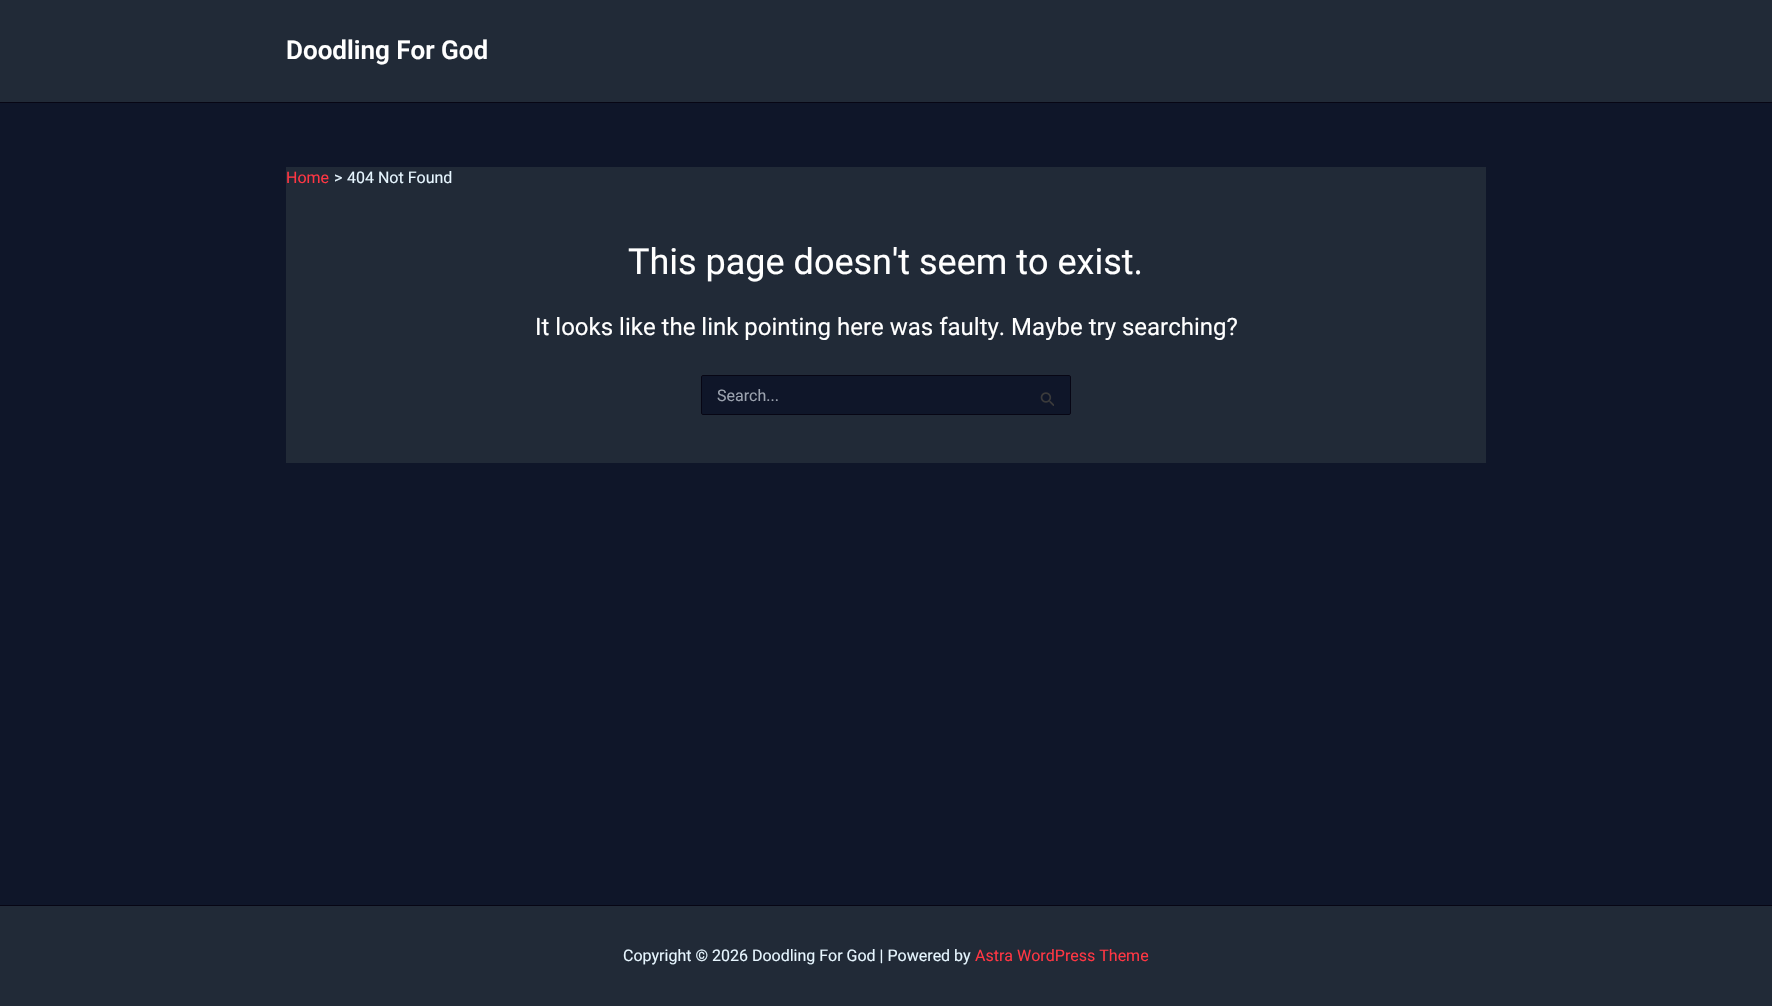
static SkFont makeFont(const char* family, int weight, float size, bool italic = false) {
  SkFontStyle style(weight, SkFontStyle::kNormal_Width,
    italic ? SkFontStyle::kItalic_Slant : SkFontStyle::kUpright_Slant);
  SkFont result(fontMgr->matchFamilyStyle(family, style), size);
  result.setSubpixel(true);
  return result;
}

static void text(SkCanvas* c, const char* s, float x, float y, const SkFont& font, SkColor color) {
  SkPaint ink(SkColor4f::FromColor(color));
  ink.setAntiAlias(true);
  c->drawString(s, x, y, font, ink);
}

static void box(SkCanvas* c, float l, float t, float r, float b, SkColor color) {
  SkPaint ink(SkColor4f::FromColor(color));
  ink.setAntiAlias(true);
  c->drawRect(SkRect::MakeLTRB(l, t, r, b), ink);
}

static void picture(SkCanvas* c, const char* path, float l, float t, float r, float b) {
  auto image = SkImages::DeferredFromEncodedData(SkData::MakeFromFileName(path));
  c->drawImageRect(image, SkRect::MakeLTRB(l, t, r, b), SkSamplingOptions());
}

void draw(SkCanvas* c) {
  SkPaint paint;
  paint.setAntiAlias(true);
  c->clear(0xff0f1629);
  box(c, 0, 0, 1772, 102, 0xff212a37);
  box(c, 0, 102, 1772, 103, 0xff070614);
  SkFont face1 = makeFont("Roboto", 600, 26);
  text(c, "Doodling For God", 286, 59, face1, 0xffffffff);
  box(c, 286, 167, 1486, 463, 0xff212a37);
  SkFont face2 = makeFont("Roboto", 400, 16);
  text(c, "Home", 286, 183, face2, 0xffff3643);
  text(c, ">", 334, 183, face2, 0xffe7f6ff);
  text(c, "404 Not Found", 347, 183, face2, 0xffe7f6ff);
  SkFont face3 = makeFont("Roboto", 400, 36);
  text(c, "This page doesn't seem to exist.", 628, 274, face3, 0xffffffff);
  SkFont face4 = makeFont("Roboto", 400, 24);
  text(c, "It looks like the link pointing here was faulty. Maybe try searching?", 535, 335, face4, 0xffffffff);
  paint.setColor(0xff0f1629);
  c->drawRoundRect(SkRect::MakeLTRB(701.5f, 375.5f, 1070.5f, 414.5f), 1.5f, 1.5f, paint);
  paint.setStyle(SkPaint::kStroke_Style);
  paint.setStrokeWidth(1);
  paint.setColor(0xff070614);
  c->drawRoundRect(SkRect::MakeLTRB(701.5f, 375.5f, 1070.5f, 414.5f), 1.5f, 1.5f, paint);
  text(c, "Search...", 717, 401, face2, 0xff9ca3af);
  picture(c, "img_01.png", 1040, 392, 1054, 406);
  box(c, 0, 906, 1772, 1006, 0xff212a37);
  box(c, 0, 905, 1772, 906, 0xff070614);
  text(c, "Copyright © 2026 Doodling For God | Powered by", 623, 961, face2, 0xffe7f6ff);
  text(c, "Astra WordPress Theme", 975, 961, face2, 0xffff3643);
}
